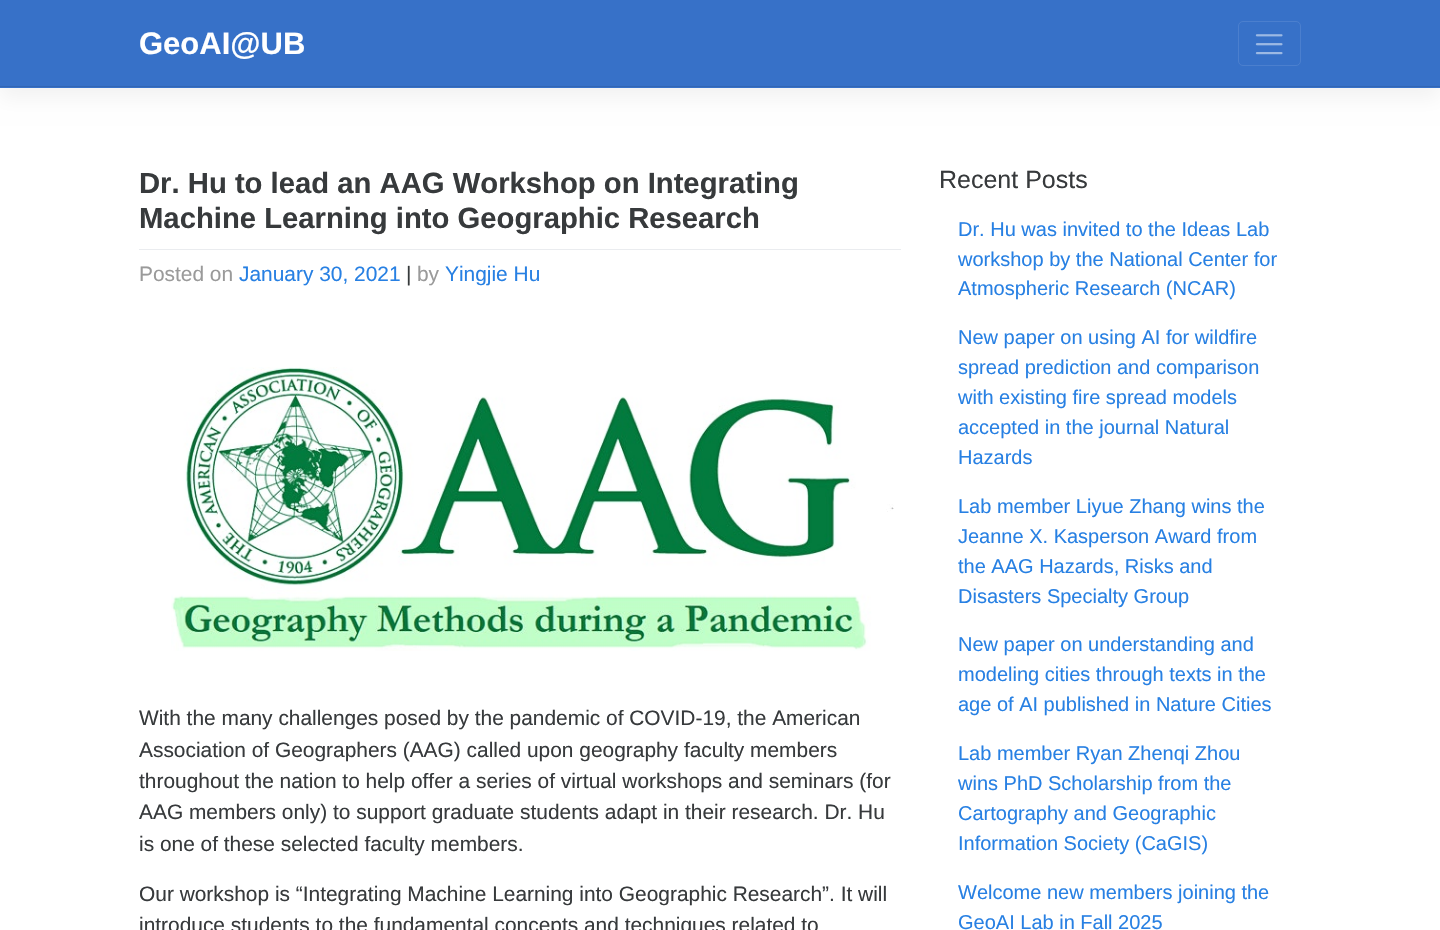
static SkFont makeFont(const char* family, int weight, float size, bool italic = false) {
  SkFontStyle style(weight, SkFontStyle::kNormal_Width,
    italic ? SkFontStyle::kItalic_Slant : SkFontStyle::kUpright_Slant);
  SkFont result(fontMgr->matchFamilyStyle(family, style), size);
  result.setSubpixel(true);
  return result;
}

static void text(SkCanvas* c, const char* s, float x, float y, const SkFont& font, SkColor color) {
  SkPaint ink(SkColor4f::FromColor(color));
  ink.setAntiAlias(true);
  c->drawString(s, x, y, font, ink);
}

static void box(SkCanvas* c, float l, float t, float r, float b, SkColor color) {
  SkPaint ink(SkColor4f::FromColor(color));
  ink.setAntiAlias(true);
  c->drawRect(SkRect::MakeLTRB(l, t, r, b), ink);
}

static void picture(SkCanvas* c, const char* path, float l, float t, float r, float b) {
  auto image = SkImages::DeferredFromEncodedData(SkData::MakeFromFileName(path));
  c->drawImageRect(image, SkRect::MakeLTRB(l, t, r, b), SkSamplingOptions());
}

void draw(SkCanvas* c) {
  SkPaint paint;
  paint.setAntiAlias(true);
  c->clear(0xffffffff);
  paint.setColor(0x0d000000);
  paint.setMaskFilter(SkMaskFilter::MakeBlur(kNormal_SkBlurStyle, 9.5f));
  c->drawRect(SkRect::MakeLTRB(0, 10, 1440, 98), paint);
  paint.setMaskFilter(nullptr);
  box(c, 0, 0, 1440, 88, 0xff3771c8);
  box(c, 0, 86, 1440, 87, 0xff3266b4);
  SkFont face1 = makeFont("Liberation Sans", 700, 31);
  text(c, "GeoAI@UB", 139, 54, face1, 0xffffffff);
  paint.setStyle(SkPaint::kStroke_Style);
  paint.setStrokeWidth(1);
  paint.setColor(0xff4b7fce);
  c->drawRoundRect(SkRect::MakeLTRB(1238.5f, 21.5f, 1300.5f, 65.5f), 4.5f, 4.5f, paint);
  picture(c, "img_01.png", 1255, 34, 1283, 55);
  box(c, 139, 249, 901, 250, 0xffeaecef);
  SkFont face2 = makeFont("Liberation Sans", 700, 29.25f);
  text(c, "Dr. Hu to lead an AAG Workshop on Integrating", 139, 193, face2, 0xff373a3c);
  text(c, "Machine Learning into Geographic Research", 139, 228, face2, 0xff373a3c);
  SkFont face3 = makeFont("Liberation Sans", 400, 20.9f);
  text(c, "Posted on", 139, 281, face3, 0xff9a9a9a);
  text(c, "January 30, 2021", 239, 281, face3, 0xff2780e3);
  text(c, "|", 406, 281, face3, 0xff373a3c);
  text(c, "by", 417, 281, face3, 0xff9a9a9a);
  text(c, "Yingjie Hu", 445, 281, face3, 0xff2780e3);
  picture(c, "img_02.png", 171, 367, 894, 651);
  text(c, "With the many challenges posed by the pandemic of COVID-19, the American", 139, 725, face3, 0xff373a3c);
  text(c, "Association of Geographers (AAG) called upon geography faculty members", 139, 757, face3, 0xff373a3c);
  text(c, "throughout the nation to help offer a series of virtual workshops and seminars (for", 139, 788, face3, 0xff373a3c);
  text(c, "AAG members only) to support graduate students adapt in their research. Dr. Hu", 139, 819, face3, 0xff373a3c);
  text(c, "is one of these selected faculty members.", 139, 851, face3, 0xff373a3c);
  text(c, "Our workshop is “Integrating Machine Learning into Geographic Research”. It will", 139, 901, face3, 0xff373a3c);
  text(c, "introduce students to the fundamental concepts and techniques related to", 139, 932, face3, 0xff373a3c);
  SkFont face4 = makeFont("Liberation Sans", 400, 25);
  text(c, "Recent Posts", 939, 188, face4, 0xff373a3c);
  SkFont face5 = makeFont("Liberation Sans", 400, 20);
  text(c, "Dr. Hu was invited to the Ideas Lab", 958, 236, face5, 0xff2780e3);
  text(c, "workshop by the National Center for", 958, 266, face5, 0xff2780e3);
  text(c, "Atmospheric Research (NCAR)", 958, 295, face5, 0xff2780e3);
  text(c, "New paper on using AI for wildfire", 958, 344, face5, 0xff2780e3);
  text(c, "spread prediction and comparison", 958, 374, face5, 0xff2780e3);
  text(c, "with existing fire spread models", 958, 404, face5, 0xff2780e3);
  text(c, "accepted in the journal Natural", 958, 434, face5, 0xff2780e3);
  text(c, "Hazards", 958, 464, face5, 0xff2780e3);
  text(c, "Lab member Liyue Zhang wins the", 958, 513, face5, 0xff2780e3);
  text(c, "Jeanne X. Kasperson Award from", 958, 543, face5, 0xff2780e3);
  text(c, "the AAG Hazards, Risks and", 958, 573, face5, 0xff2780e3);
  text(c, "Disasters Specialty Group", 958, 603, face5, 0xff2780e3);
  text(c, "New paper on understanding and", 958, 651, face5, 0xff2780e3);
  text(c, "modeling cities through texts in the", 958, 681, face5, 0xff2780e3);
  text(c, "age of AI published in Nature Cities", 958, 711, face5, 0xff2780e3);
  text(c, "Lab member Ryan Zhenqi Zhou", 958, 760, face5, 0xff2780e3);
  text(c, "wins PhD Scholarship from the", 958, 790, face5, 0xff2780e3);
  text(c, "Cartography and Geographic", 958, 820, face5, 0xff2780e3);
  text(c, "Information Society (CaGIS)", 958, 850, face5, 0xff2780e3);
  text(c, "Welcome new members joining the", 958, 899, face5, 0xff2780e3);
  text(c, "GeoAI Lab in Fall 2025", 958, 929, face5, 0xff2780e3);
}
